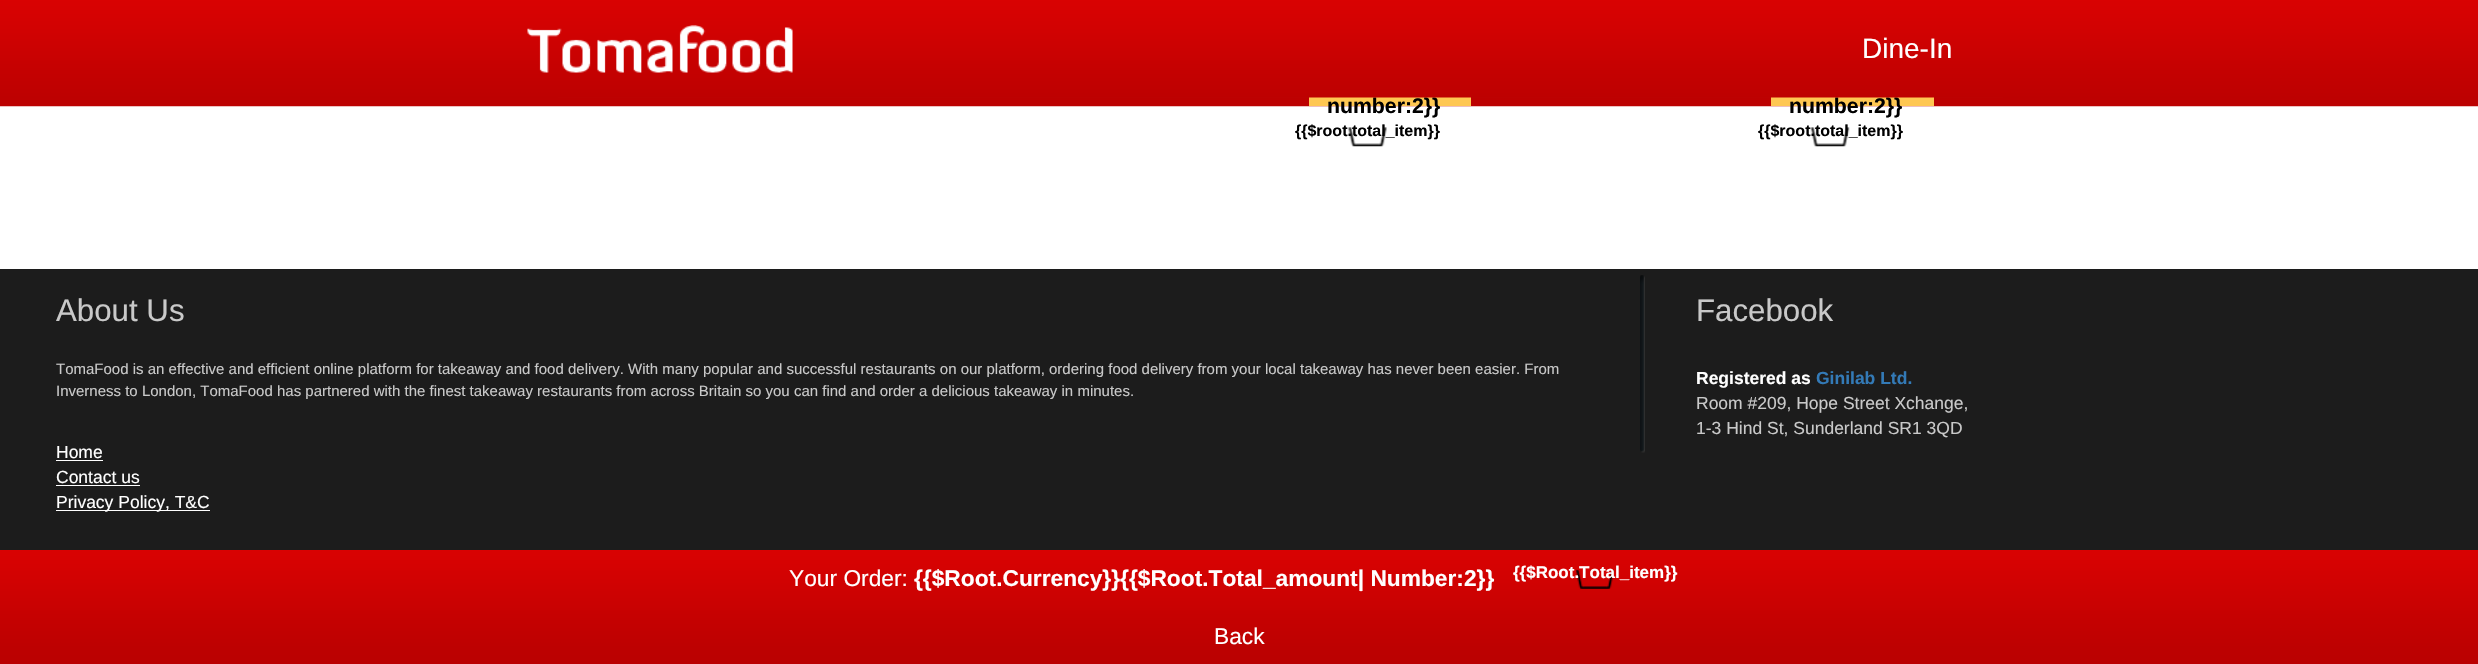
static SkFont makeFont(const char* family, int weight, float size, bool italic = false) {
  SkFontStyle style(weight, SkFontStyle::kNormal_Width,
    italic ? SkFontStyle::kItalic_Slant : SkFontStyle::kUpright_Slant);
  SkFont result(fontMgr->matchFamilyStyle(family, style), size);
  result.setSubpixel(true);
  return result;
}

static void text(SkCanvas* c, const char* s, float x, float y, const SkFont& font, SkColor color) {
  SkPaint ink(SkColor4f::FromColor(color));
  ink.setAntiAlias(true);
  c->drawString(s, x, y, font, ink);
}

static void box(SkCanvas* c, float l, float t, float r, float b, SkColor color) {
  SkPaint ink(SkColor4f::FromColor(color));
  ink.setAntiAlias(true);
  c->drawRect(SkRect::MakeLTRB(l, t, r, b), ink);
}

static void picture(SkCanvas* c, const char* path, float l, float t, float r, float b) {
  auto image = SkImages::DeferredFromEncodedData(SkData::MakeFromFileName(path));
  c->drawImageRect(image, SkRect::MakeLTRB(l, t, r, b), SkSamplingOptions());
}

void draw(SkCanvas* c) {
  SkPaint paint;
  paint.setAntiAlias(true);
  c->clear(0xffffffff);
  picture(c, "img_03.png", 0, 0, 2478, 107);
  box(c, 1309, 97, 1471, 106, 0xfffec752);
  SkFont face1 = makeFont("Liberation Sans", 700, 21.25f);
  text(c, "number:2}}", 1327, 113, face1, 0xff000000);
  box(c, 1771, 97, 1934, 106, 0xfffec752);
  text(c, "number:2}}", 1789, 113, face1, 0xff000000);
  picture(c, "img_01.png", 558, 0, 2003, 98);
  picture(c, "img_02.png", 527, 25, 793, 73);
  SkFont face2 = makeFont("Liberation Sans", 400, 28);
  text(c, "Dine-In", 1862, 58, face2, 0xffffffff);
  picture(c, "img_04.png", 1348, 127, 1387, 147);
  SkFont face3 = makeFont("Liberation Sans", 700, 16);
  text(c, "{{$root.total_item}}", 1295, 136, face3, 0xff000000);
  picture(c, "img_05.png", 1810, 127, 1850, 147);
  text(c, "{{$root.total_item}}", 1758, 136, face3, 0xff000000);
  box(c, 0, 269, 2478, 550, 0xff1c1c1c);
  SkFont face4 = makeFont("Liberation Sans", 400, 31.25f);
  text(c, "About Us", 56, 321, face4, 0xffc9c9c9);
  SkFont face5 = makeFont("Liberation Sans", 400, 15);
  text(c, "TomaFood is an effective and efficient online platform for takeaway and food delivery. With many popular and successful restaurants on our platform, ordering food delivery from your local takeaway has never been easier. From", 56, 374, face5, 0xffc9c9c9);
  text(c, "Inverness to London, TomaFood has partnered with the finest takeaway restaurants from across Britain so you can find and order a delicious takeaway in minutes.", 56, 396, face5, 0xffc9c9c9);
  SkFont face6 = makeFont("Liberation Sans", 400, 17.5f);
  text(c, "Home", 56, 458, face6, 0xffffffff);
  box(c, 56, 460, 103, 461, 0xffffffff);
  text(c, "Contact us", 56, 483, face6, 0xffffffff);
  box(c, 56, 485, 140, 486, 0xffffffff);
  box(c, 56, 510, 210, 511, 0xffffffff);
  text(c, "Privacy Policy, T&C", 56, 508, face6, 0xffffffff);
  picture(c, "img_06.png", 1640, 275, 1645, 453);
  text(c, "Facebook", 1696, 321, face4, 0xffc9c9c9);
  SkFont face7 = makeFont("Liberation Sans", 700, 17.5f);
  text(c, "Registered as", 1696, 384, face7, 0xffffffff);
  text(c, "Ginilab Ltd.", 1816, 384, face7, 0xff337ab7);
  text(c, "Room #209, Hope Street Xchange,", 1696, 409, face6, 0xffc9c9c9);
  text(c, "1-3 Hind St, Sunderland SR1 3QD", 1696, 434, face6, 0xffc9c9c9);
  picture(c, "img_07.png", 0, 550, 2478, 664);
  SkFont face8 = makeFont("Liberation Sans", 400, 22.75f);
  text(c, "Your Order:", 789, 586, face8, 0xffffffff);
  SkFont face9 = makeFont("Liberation Sans", 700, 22.75f);
  text(c, "{{$Root.Currency}}{{$Root.Total_amount| Number:2}}", 914, 586, face9, 0xffffffff);
  picture(c, "img_08.png", 1576, 569, 1614, 589);
  SkFont face10 = makeFont("Liberation Sans", 700, 17);
  text(c, "{{$Root.Total_item}}", 1513, 578, face10, 0xffffffff);
  text(c, "Back", 1214, 644, face8, 0xffffffff);
}
